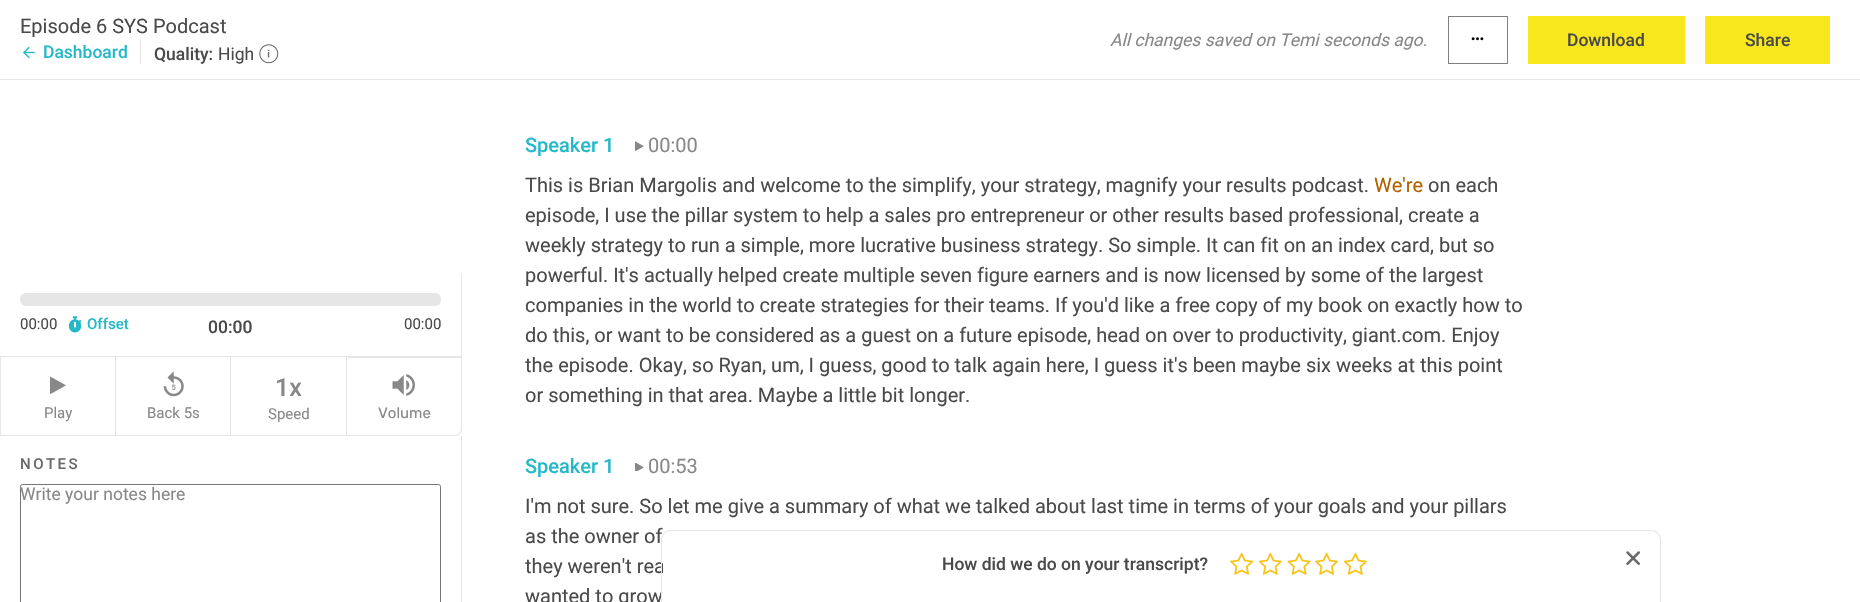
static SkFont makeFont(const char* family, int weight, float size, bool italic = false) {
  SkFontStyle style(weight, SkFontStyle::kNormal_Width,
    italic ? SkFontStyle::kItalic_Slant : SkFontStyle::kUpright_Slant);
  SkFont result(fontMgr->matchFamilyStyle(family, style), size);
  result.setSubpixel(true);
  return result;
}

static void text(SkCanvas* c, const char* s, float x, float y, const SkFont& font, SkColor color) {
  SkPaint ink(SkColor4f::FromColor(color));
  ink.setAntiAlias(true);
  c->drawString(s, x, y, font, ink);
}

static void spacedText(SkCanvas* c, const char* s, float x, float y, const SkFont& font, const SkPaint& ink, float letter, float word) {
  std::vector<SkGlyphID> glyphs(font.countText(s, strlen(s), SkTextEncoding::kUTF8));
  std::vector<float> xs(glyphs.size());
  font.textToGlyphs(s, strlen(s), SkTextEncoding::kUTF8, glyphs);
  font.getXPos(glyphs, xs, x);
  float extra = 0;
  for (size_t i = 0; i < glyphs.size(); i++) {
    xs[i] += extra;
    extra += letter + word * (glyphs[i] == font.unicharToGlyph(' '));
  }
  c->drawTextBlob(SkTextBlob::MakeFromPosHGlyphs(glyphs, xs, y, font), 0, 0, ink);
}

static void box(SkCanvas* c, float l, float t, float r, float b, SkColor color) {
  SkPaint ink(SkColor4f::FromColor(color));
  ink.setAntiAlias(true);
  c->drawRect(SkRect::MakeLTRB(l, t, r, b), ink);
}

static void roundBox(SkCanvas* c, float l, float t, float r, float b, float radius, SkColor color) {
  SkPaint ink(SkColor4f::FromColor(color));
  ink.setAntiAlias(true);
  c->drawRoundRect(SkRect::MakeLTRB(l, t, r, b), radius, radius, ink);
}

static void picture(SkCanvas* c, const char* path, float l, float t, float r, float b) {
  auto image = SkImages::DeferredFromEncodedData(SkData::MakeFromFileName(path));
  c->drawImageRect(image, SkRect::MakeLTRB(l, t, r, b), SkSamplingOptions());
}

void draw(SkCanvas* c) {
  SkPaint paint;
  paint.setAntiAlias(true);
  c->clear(0xffffffff);
  box(c, 0, 79, 1860, 80, 0xffe6e6e6);
  SkFont face1 = makeFont("Roboto", 400, 20);
  text(c, "Episode 6 SYS Podcast", 20, 33, face1, 0xff4a4a4a);
  picture(c, "img_01.png", 23, 46, 35, 59);
  SkFont face2 = makeFont("Roboto", 500, 17.5f);
  text(c, "Dashboard", 43, 58, face2, 0xff25b9c8);
  box(c, 140, 39, 141, 64, 0xffe6e6e6);
  text(c, "Quality:", 154, 60, face2, 0xff4a4a4a);
  SkFont face3 = makeFont("Roboto", 400, 17.5f);
  text(c, "High", 218, 60, face3, 0xff4a4a4a);
  picture(c, "img_02.png", 259, 44, 279, 64);
  SkFont face4 = makeFont("Roboto", 400, 17.5f, true);
  text(c, "All changes saved on Temi seconds ago.", 1110, 46, face4, 0xff888888);
  paint.setStyle(SkPaint::kStroke_Style);
  paint.setStrokeWidth(1);
  paint.setColor(0xff808080);
  c->drawRect(SkRect::MakeLTRB(1448.5f, 16.5f, 1507.5f, 63.5f), paint);
  picture(c, "img_03.png", 1471, 37, 1484, 41);
  box(c, 1528, 16, 1685, 64, 0xfff8e71c);
  text(c, "Download", 1567, 46, face2, 0xff4a4a4a);
  box(c, 1705, 16, 1830, 64, 0xfff8e71c);
  text(c, "Share", 1745, 46, face2, 0xff4a4a4a);
  box(c, 461, 273, 462, 356, 0xffe6e6e6);
  roundBox(c, 20, 293, 441, 306, 6, 0xffe6e6e6);
  SkFont face5 = makeFont("Roboto", 400, 15);
  text(c, "00:00", 20, 329, face5, 0xff4a4a4a);
  picture(c, "img_04.png", 69, 316, 81, 333);
  SkFont face6 = makeFont("Roboto", 500, 15);
  text(c, "Offset", 87, 329, face6, 0xff25b9c8);
  text(c, "00:00", 208, 333, face2, 0xff4a4a4a);
  text(c, "00:00", 404, 329, face5, 0xff4a4a4a);
  paint.setColor(0xffe6e6e6);
  c->drawRect(SkRect::MakeLTRB(0.5f, 356.5f, 115.5f, 435.5f), paint);
  picture(c, "img_05.png", 50, 376, 66, 394);
  text(c, "Play", 44, 418, face5, 0xff888888);
  box(c, 116, 356, 348, 357, 0xffe6e6e6);
  box(c, 230, 356, 231, 436, 0xffe6e6e6);
  box(c, 116, 435, 231, 436, 0xffe6e6e6);
  picture(c, "img_06.png", 163, 371, 184, 397);
  text(c, "Back 5s", 147, 418, face5, 0xff888888);
  box(c, 346, 356, 347, 436, 0xffe6e6e6);
  box(c, 231, 435, 348, 436, 0xffe6e6e6);
  SkFont face7 = makeFont("Roboto", 500, 25);
  text(c, "1x", 275, 396, face7, 0xff888888);
  text(c, "Speed", 268, 419, face5, 0xff888888);
  paint.setStyle(SkPaint::kFill_Style);
  c->drawPath(SkPathBuilder(SkPathFillType::kEvenOdd).moveTo(348, 356).lineTo(462, 356).lineTo(462, 429).cubicTo(462, 433, 459, 436, 455, 436).lineTo(348, 436).close().moveTo(348, 358).lineTo(461, 358).lineTo(461, 429).cubicTo(461, 432, 458, 435, 455, 435).lineTo(348, 435).close().detach(), paint);
  picture(c, "img_07.png", 392, 374, 415, 396);
  SkFont face8 = makeFont("Rubik", 400, 15);
  text(c, "Volume", 378, 418, face8, 0xff888888);
  box(c, 461, 436, 462, 602, 0xffe6e6e6);
  paint.setColor(0xff6a6a6a);
  spacedText(c, "NOTES", 20, 469, face6, paint, 2.5f, 0);
  paint.setStyle(SkPaint::kStroke_Style);
  paint.setColor(0xff767676);
  c->drawRoundRect(SkRect::MakeLTRB(20.5f, 484.5f, 440.5f, 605.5f), 2, 2, paint);
  text(c, "Write your notes here", 20, 500, face3, 0xff888888);
  SkFont face9 = makeFont("Roboto", 500, 20);
  text(c, "Speaker 1", 525, 152, face9, 0xff25b9c8);
  picture(c, "img_08.png", 635, 141, 644, 151);
  text(c, "00:00", 648, 152, face1, 0xff888888);
  text(c, "This is Brian Margolis and welcome to the simplify, your strategy, magnify your results podcast.", 525, 192, face1, 0xff4a4a4a);
  text(c, "We're", 1374, 192, face1, 0xffb46100);
  text(c, "on each", 1428, 192, face1, 0xff4a4a4a);
  text(c, "episode, I use the pillar system to help a sales pro entrepreneur or other results based professional, create a", 525, 222, face1, 0xff4a4a4a);
  text(c, "weekly strategy to run a simple, more lucrative business strategy. So simple. It can fit on an index card, but so", 525, 252, face1, 0xff4a4a4a);
  text(c, "powerful. It's actually helped create multiple seven figure earners and is now licensed by some of the largest", 525, 282, face1, 0xff4a4a4a);
  text(c, "companies in the world to create strategies for their teams. If you'd like a free copy of my book on exactly how to", 525, 312, face1, 0xff4a4a4a);
  text(c, "do this, or want to be considered as a guest on a future episode, head on over to productivity, giant.com. Enjoy", 525, 342, face1, 0xff4a4a4a);
  text(c, "the episode. Okay, so Ryan, um, I guess, good to talk again here, I guess it's been maybe six weeks at this point", 525, 372, face1, 0xff4a4a4a);
  text(c, "or something in that area. Maybe a little bit longer.", 525, 402, face1, 0xff4a4a4a);
  text(c, "Speaker 1", 525, 473, face9, 0xff25b9c8);
  picture(c, "img_09.png", 635, 463, 644, 471);
  text(c, "00:53", 648, 473, face1, 0xff888888);
  text(c, "I'm not sure. So let me give a summary of what we talked about last time in terms of your goals and your pillars", 525, 513, face1, 0xff4a4a4a);
  text(c, "as the owner of", 525, 543, face1, 0xff4a4a4a);
  text(c, "they weren't rea", 525, 573, face1, 0xff4a4a4a);
  text(c, "wanted to grow", 525, 603, face1, 0xff4a4a4a);
  paint.setStyle(SkPaint::kFill_Style);
  paint.setColor(0xffffffff);
  c->drawPath(SkPathBuilder().moveTo(672, 531).lineTo(1651, 531).cubicTo(1656, 531, 1660, 535, 1660, 540).lineTo(1660, 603).lineTo(663, 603).lineTo(663, 540).cubicTo(663, 535, 667, 531, 672, 531).close().detach(), paint);
  paint.setColor(0xffe6e6e6);
  c->drawPath(SkPathBuilder(SkPathFillType::kEvenOdd).moveTo(671, 530).lineTo(1651, 530).cubicTo(1657, 530, 1661, 534, 1661, 540).lineTo(1661, 602).lineTo(661, 602).lineTo(661, 540).cubicTo(661, 534, 666, 530, 671, 530).close().moveTo(671, 531).lineTo(1651, 531).cubicTo(1656, 531, 1660, 535, 1660, 540).lineTo(1660, 602).lineTo(662, 602).lineTo(662, 540).cubicTo(662, 535, 666, 531, 671, 531).close().detach(), paint);
  text(c, "How did we do on your transcript?", 942, 570, face2, 0xff4a4a4a);
  picture(c, "img_10.png", 1230, 552, 1254, 575);
  picture(c, "img_11.png", 1258, 552, 1282, 575);
  picture(c, "img_12.png", 1287, 552, 1311, 575);
  picture(c, "img_10.png", 1315, 552, 1339, 575);
  picture(c, "img_11.png", 1343, 552, 1367, 575);
  picture(c, "img_13.png", 1626, 551, 1640, 565);
}
